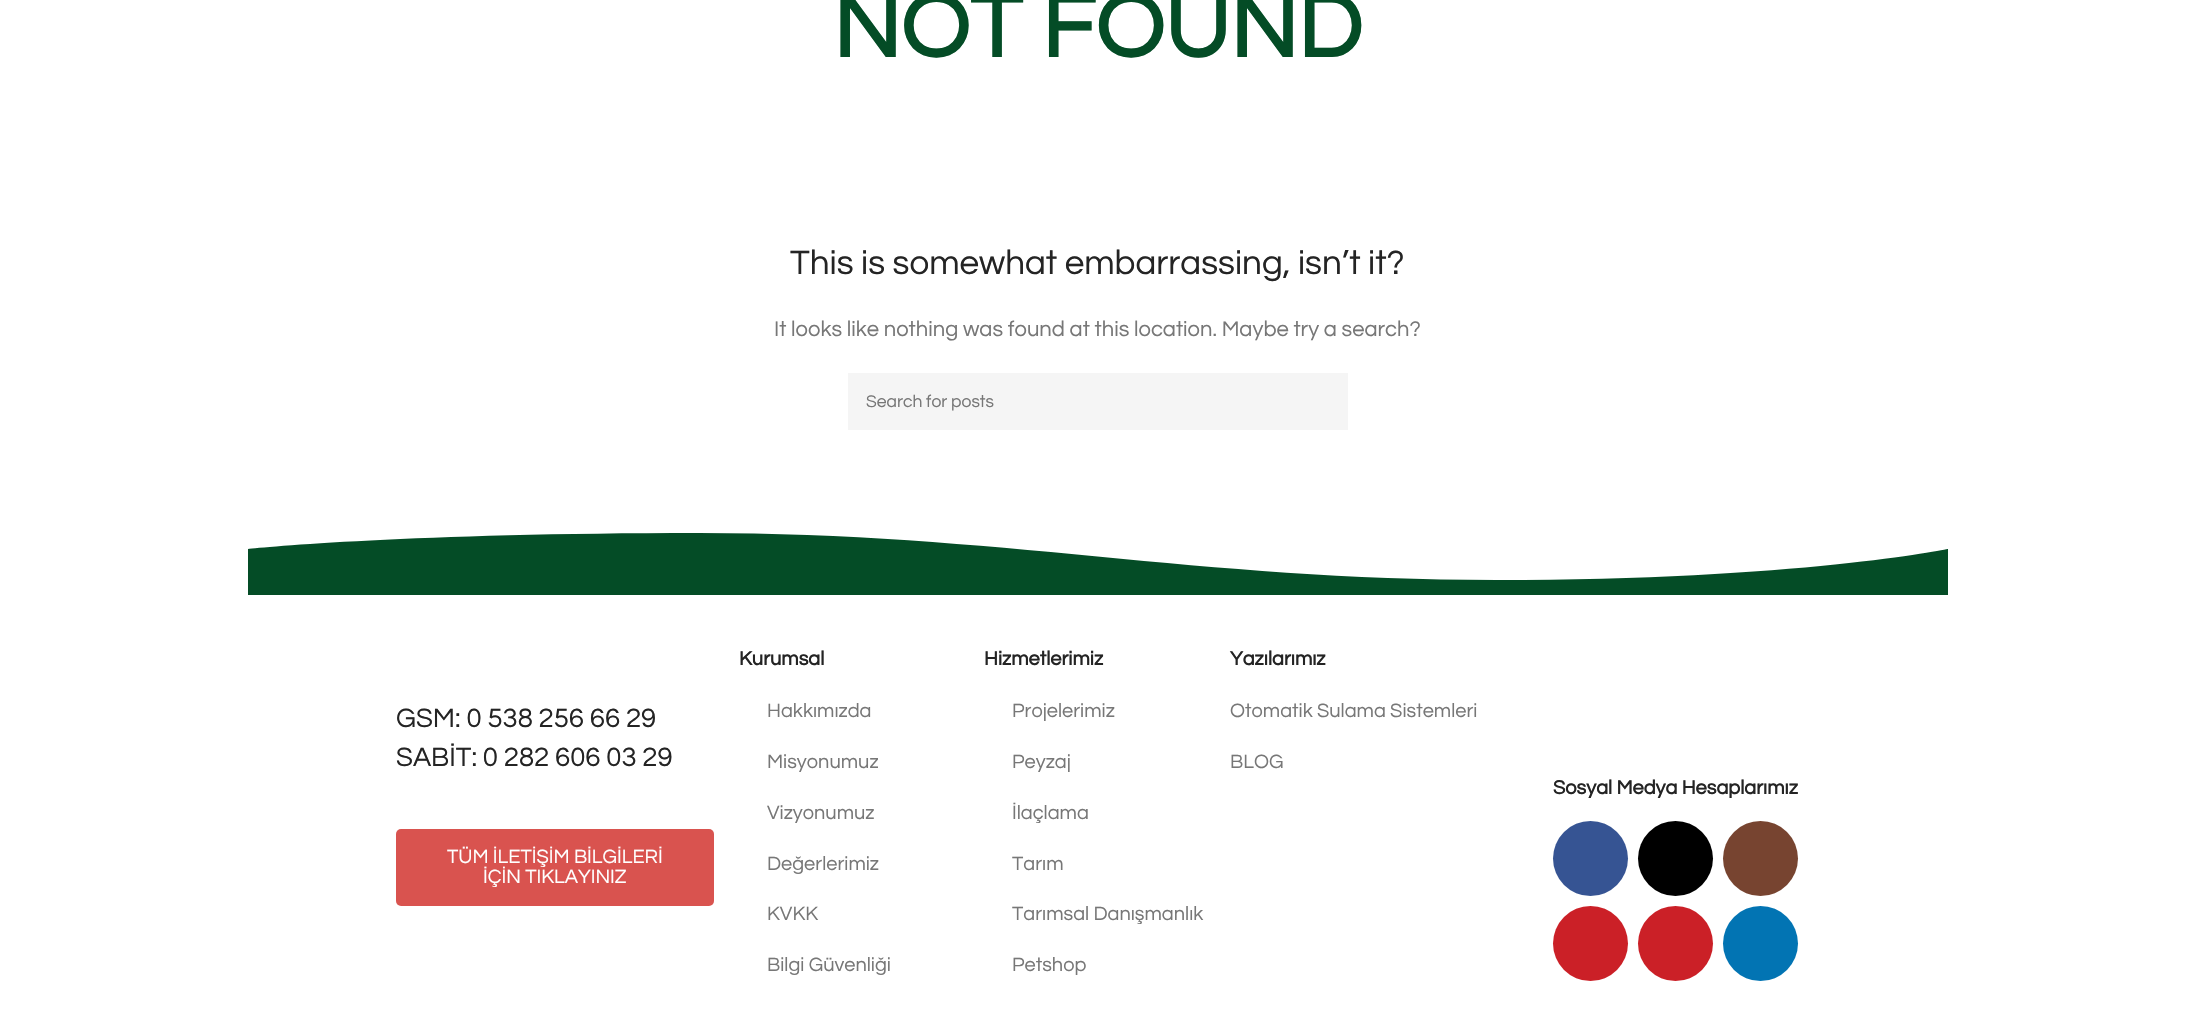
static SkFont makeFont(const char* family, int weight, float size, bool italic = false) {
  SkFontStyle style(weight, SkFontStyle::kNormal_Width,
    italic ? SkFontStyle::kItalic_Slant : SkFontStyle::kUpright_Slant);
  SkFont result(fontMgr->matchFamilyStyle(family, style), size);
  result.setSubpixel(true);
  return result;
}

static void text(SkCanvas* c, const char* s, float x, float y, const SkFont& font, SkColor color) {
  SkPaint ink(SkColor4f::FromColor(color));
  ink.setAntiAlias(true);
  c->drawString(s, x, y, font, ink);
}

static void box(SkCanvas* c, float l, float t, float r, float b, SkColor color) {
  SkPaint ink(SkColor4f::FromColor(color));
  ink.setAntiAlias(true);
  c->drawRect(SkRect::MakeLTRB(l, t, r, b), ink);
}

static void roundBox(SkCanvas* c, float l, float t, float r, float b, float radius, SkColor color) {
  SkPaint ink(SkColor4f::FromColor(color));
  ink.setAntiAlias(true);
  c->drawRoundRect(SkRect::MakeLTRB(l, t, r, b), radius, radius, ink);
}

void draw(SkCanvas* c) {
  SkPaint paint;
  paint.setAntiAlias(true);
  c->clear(0xffffffff);
  SkFont face1 = makeFont("Questrial", 700, 92.25f);
  text(c, "NOT FOUND", 833, 57, face1, 0xff044c26);
  SkFont face2 = makeFont("Questrial", 400, 35);
  text(c, "This is somewhat embarrassing, isn’t it?", 790, 274, face2, 0xff242424);
  SkFont face3 = makeFont("Questrial", 400, 22);
  text(c, "It looks like nothing was found at this location. Maybe try a search?", 774, 336, face3, 0xff777777);
  box(c, 848, 373, 1348, 430, 0xfff5f5f5);
  SkFont face4 = makeFont("Questrial", 400, 17.5f);
  text(c, "Search for posts", 866, 407, face4, 0xff777777);
  c->save();
  c->clipRect(SkRect::MakeLTRB(248, 533, 1948, 595));
  paint.setColor(0xff044c26);
  c->drawPath(SkPathBuilder().moveTo(247, 549).cubicTo(247, 549, 397, 533, 699, 533).cubicTo(1000, 533, 1195, 580, 1496, 580).cubicTo(1798, 580, 1948, 549, 1948, 549).lineTo(1948, 596).lineTo(247, 596).close().detach(), paint);
  c->restore();
  SkFont face5 = makeFont("Questrial", 400, 27.5f);
  text(c, "GSM: 0 538 256 66 29", 396, 727, face5, 0xff242424);
  text(c, "SABİT: 0 282 606 03 29", 396, 766, face5, 0xff242424);
  roundBox(c, 396, 829, 714, 906, 5, 0xffd9534f);
  SkFont face6 = makeFont("Questrial", 400, 20);
  text(c, "TÜM İLETİŞİM BİLGİLERİ", 447, 863, face6, 0xffffffff);
  text(c, "İÇİN TIKLAYINIZ", 483, 883, face6, 0xffffffff);
  SkFont face7 = makeFont("Questrial", 700, 20);
  text(c, "Kurumsal", 739, 665, face7, 0xff242424);
  text(c, "Hakkımızda", 767, 717, face6, 0xff777777);
  text(c, "Misyonumuz", 767, 768, face6, 0xff777777);
  text(c, "Vizyonumuz", 767, 819, face6, 0xff777777);
  text(c, "Değerlerimiz", 767, 870, face6, 0xff777777);
  text(c, "KVKK", 767, 920, face6, 0xff777777);
  text(c, "Bilgi Güvenliği", 767, 971, face6, 0xff777777);
  text(c, "Hizmetlerimiz", 984, 665, face7, 0xff242424);
  text(c, "Projelerimiz", 1012, 717, face6, 0xff777777);
  text(c, "Peyzaj", 1012, 768, face6, 0xff777777);
  text(c, "İlaçlama", 1012, 819, face6, 0xff777777);
  text(c, "Tarım", 1012, 870, face6, 0xff777777);
  text(c, "Tarımsal Danışmanlık", 1012, 920, face6, 0xff777777);
  text(c, "Petshop", 1012, 971, face6, 0xff777777);
  text(c, "Yazılarımız", 1230, 665, face7, 0xff242424);
  text(c, "Otomatik Sulama Sistemleri", 1230, 717, face6, 0xff777777);
  text(c, "BLOG", 1230, 768, face6, 0xff777777);
  text(c, "Sosyal Medya Hesaplarımız", 1553, 794, face7, 0xff242424);
  paint.setColor(0xff365493);
  c->drawCircle(1590.5f, 858.5f, 37.5f, paint);
  paint.setColor(0xff000000);
  c->drawCircle(1675.5f, 858.5f, 37.5f, paint);
  paint.setColor(0xff774430);
  c->drawCircle(1760.5f, 858.5f, 37.5f, paint);
  paint.setColor(0xffcb2027);
  c->drawCircle(1590.5f, 943.5f, 37.5f, paint);
  c->drawCircle(1675.5f, 943.5f, 37.5f, paint);
  paint.setColor(0xff0274b3);
  c->drawCircle(1760.5f, 943.5f, 37.5f, paint);
}
